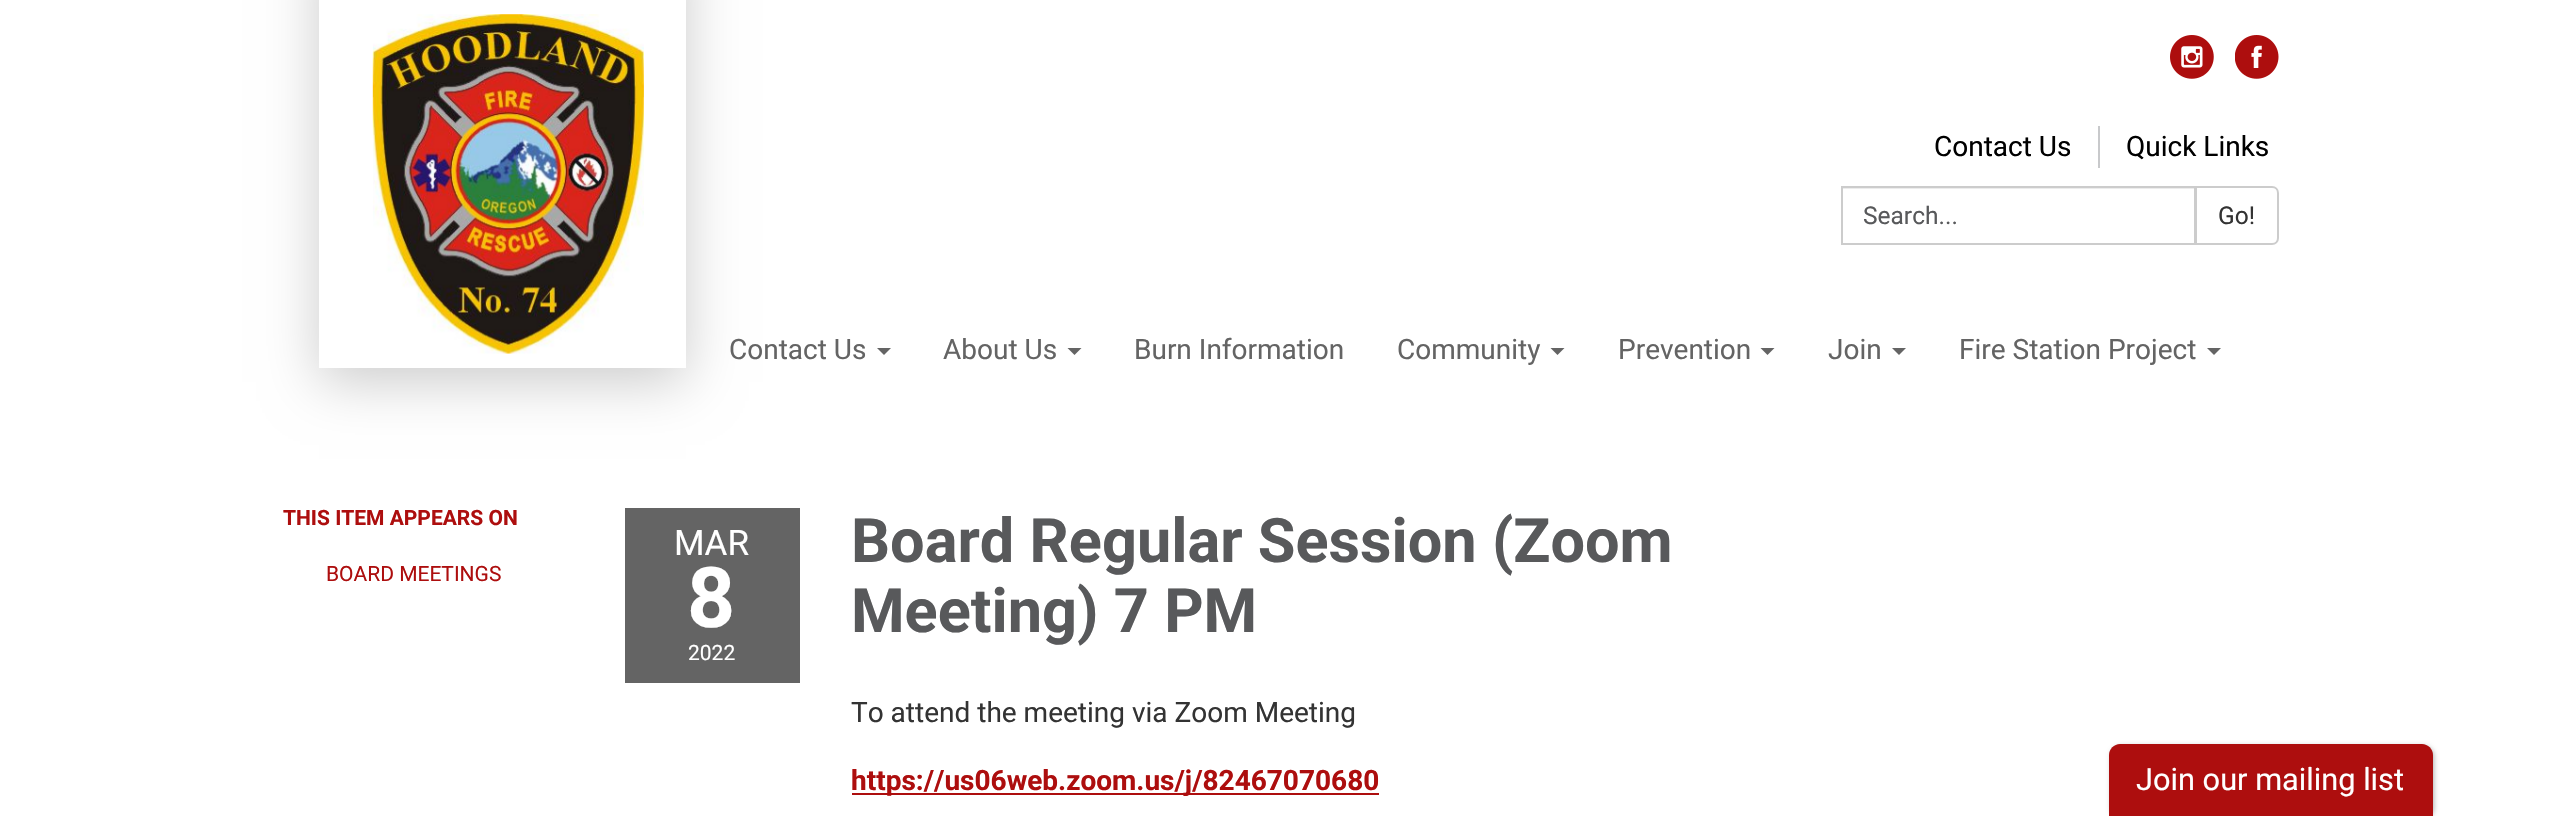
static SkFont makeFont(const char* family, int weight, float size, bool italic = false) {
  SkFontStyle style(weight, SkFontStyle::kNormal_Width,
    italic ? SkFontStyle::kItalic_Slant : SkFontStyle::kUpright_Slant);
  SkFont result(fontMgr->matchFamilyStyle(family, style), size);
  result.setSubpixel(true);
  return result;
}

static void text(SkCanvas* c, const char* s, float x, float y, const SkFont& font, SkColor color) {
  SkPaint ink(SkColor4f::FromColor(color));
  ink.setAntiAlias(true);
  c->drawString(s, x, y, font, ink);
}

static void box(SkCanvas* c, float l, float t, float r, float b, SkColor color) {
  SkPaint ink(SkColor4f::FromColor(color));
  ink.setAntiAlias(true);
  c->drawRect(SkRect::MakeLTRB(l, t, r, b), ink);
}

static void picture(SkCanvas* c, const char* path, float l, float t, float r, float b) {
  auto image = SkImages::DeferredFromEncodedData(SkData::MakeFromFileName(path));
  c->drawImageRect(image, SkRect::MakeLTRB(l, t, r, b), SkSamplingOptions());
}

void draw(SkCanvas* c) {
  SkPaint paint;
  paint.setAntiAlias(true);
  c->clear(0xffffffff);
  paint.setColor(0x33000000);
  paint.setMaskFilter(SkMaskFilter::MakeBlur(kNormal_SkBlurStyle, 26));
  c->drawRect(SkRect::MakeLTRB(319, -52, 686, 382), paint);
  paint.setMaskFilter(nullptr);
  box(c, 319, 0, 686, 368, 0xffffffff);
  picture(c, "img_01.png", 372, 14, 644, 354);
  picture(c, "img_02.png", 2170, 35, 2214, 79);
  picture(c, "img_03.png", 2235, 35, 2279, 79);
  SkFont face1 = makeFont("Roboto", 400, 28);
  text(c, "Contact Us", 1934, 156, face1, 0xff000000);
  box(c, 2098, 126, 2100, 168, 0xffc8c9cb);
  text(c, "Quick Links", 2126, 156, face1, 0xff000000);
  box(c, 1843, 188, 2195, 189, 0xffececec);
  paint.setStyle(SkPaint::kStroke_Style);
  paint.setStrokeWidth(2);
  paint.setColor(0xffcccccc);
  c->drawRect(SkRect::MakeLTRB(1842, 187, 2195, 244), paint);
  SkFont face2 = makeFont("Roboto", 400, 24.5f);
  text(c, "Search...", 1863, 224, face2, 0xff58595b);
  paint.setStyle(SkPaint::kFill_Style);
  paint.setColor(0xffffffff);
  c->drawPath(SkPathBuilder().moveTo(2196, 187).lineTo(2272, 187).cubicTo(2275.5f, 187, 2278, 189.5f, 2278, 193).lineTo(2278, 238).cubicTo(2278, 241.5f, 2275.5f, 244, 2272, 244).lineTo(2196, 244).close().detach(), paint);
  paint.setStyle(SkPaint::kStroke_Style);
  paint.setColor(0xffcccccc);
  c->drawPath(SkPathBuilder().moveTo(2196, 187).lineTo(2272, 187).cubicTo(2275.5f, 187, 2278, 189.5f, 2278, 193).lineTo(2278, 238).cubicTo(2278, 241.5f, 2275.5f, 244, 2272, 244).lineTo(2196, 244).close().detach(), paint);
  text(c, "Go!", 2218, 224, face2, 0xff333333);
  text(c, "Contact Us", 729, 359, face1, 0xff646464);
  paint.setStyle(SkPaint::kFill_Style);
  paint.setColor(0xff646464);
  c->drawPath(SkPathBuilder().moveTo(877, 348).lineTo(891, 348).lineTo(884, 355).close().detach(), paint);
  text(c, "About Us", 943, 359, face1, 0xff646464);
  c->drawPath(SkPathBuilder().moveTo(1067.5f, 348).lineTo(1081.5f, 348).lineTo(1074.5f, 355).close().detach(), paint);
  text(c, "Burn Information", 1134, 359, face1, 0xff646464);
  text(c, "Community", 1397, 359, face1, 0xff646464);
  c->drawPath(SkPathBuilder().moveTo(1550.5f, 348).lineTo(1564.5f, 348).lineTo(1557.5f, 355).close().detach(), paint);
  text(c, "Prevention", 1618, 359, face1, 0xff646464);
  c->drawPath(SkPathBuilder().moveTo(1760.5f, 348).lineTo(1774.5f, 348).lineTo(1767.5f, 355).close().detach(), paint);
  text(c, "Join", 1828, 359, face1, 0xff646464);
  c->drawPath(SkPathBuilder().moveTo(1892, 348).lineTo(1906, 348).lineTo(1899, 355).close().detach(), paint);
  text(c, "Fire Station Project", 1959, 359, face1, 0xff646464);
  c->drawPath(SkPathBuilder().moveTo(2207, 348).lineTo(2221, 348).lineTo(2214, 355).close().detach(), paint);
  SkFont face3 = makeFont("Roboto", 700, 21);
  text(c, "THIS ITEM APPEARS ON", 283, 525, face3, 0xffad0e0e);
  SkFont face4 = makeFont("Roboto", 400, 21);
  text(c, "BOARD MEETINGS", 326, 581, face4, 0xffad0e0e);
  box(c, 625, 508, 800, 683, 0xff646464);
  SkFont face5 = makeFont("Roboto", 400, 35);
  text(c, "MAR", 674, 555, face5, 0xffffffff);
  SkFont face6 = makeFont("Roboto", 700, 84);
  text(c, "8", 687, 627, face6, 0xffffffff);
  text(c, "2022", 688, 660, face4, 0xffffffff);
  SkFont face7 = makeFont("Roboto", 700, 61.25f);
  text(c, "Board Regular Session (Zoom", 851, 562, face7, 0xff58595b);
  text(c, "Meeting) 7 PM", 851, 632, face7, 0xff58595b);
  text(c, "To attend the meeting via Zoom Meeting", 851, 722, face1, 0xff333333);
  box(c, 852, 793, 1379, 795, 0xffad0e0e);
  SkFont face8 = makeFont("Roboto", 700, 28);
  text(c, "https://us06web.zoom.us/j/82467070680", 851, 790, face8, 0xffad0e0e);
  paint.setColor(0x4d000000);
  paint.setMaskFilter(SkMaskFilter::MakeBlur(kNormal_SkBlurStyle, 2.5f));
  c->drawRoundRect(SkRect::MakeLTRB(2111, 746, 2434, 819), 11, 11, paint);
  paint.setMaskFilter(nullptr);
  paint.setColor(0xffad0e0e);
  c->drawPath(SkPathBuilder().moveTo(2120, 744).lineTo(2422, 744).cubicTo(2428, 744, 2433, 749, 2433, 755).lineTo(2433, 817).lineTo(2109, 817).lineTo(2109, 755).cubicTo(2109, 749, 2114, 744, 2120, 744).close().detach(), paint);
  SkFont face9 = makeFont("Roboto", 400, 30.75f);
  text(c, "Join our mailing list", 2136, 790, face9, 0xffffffff);
}
